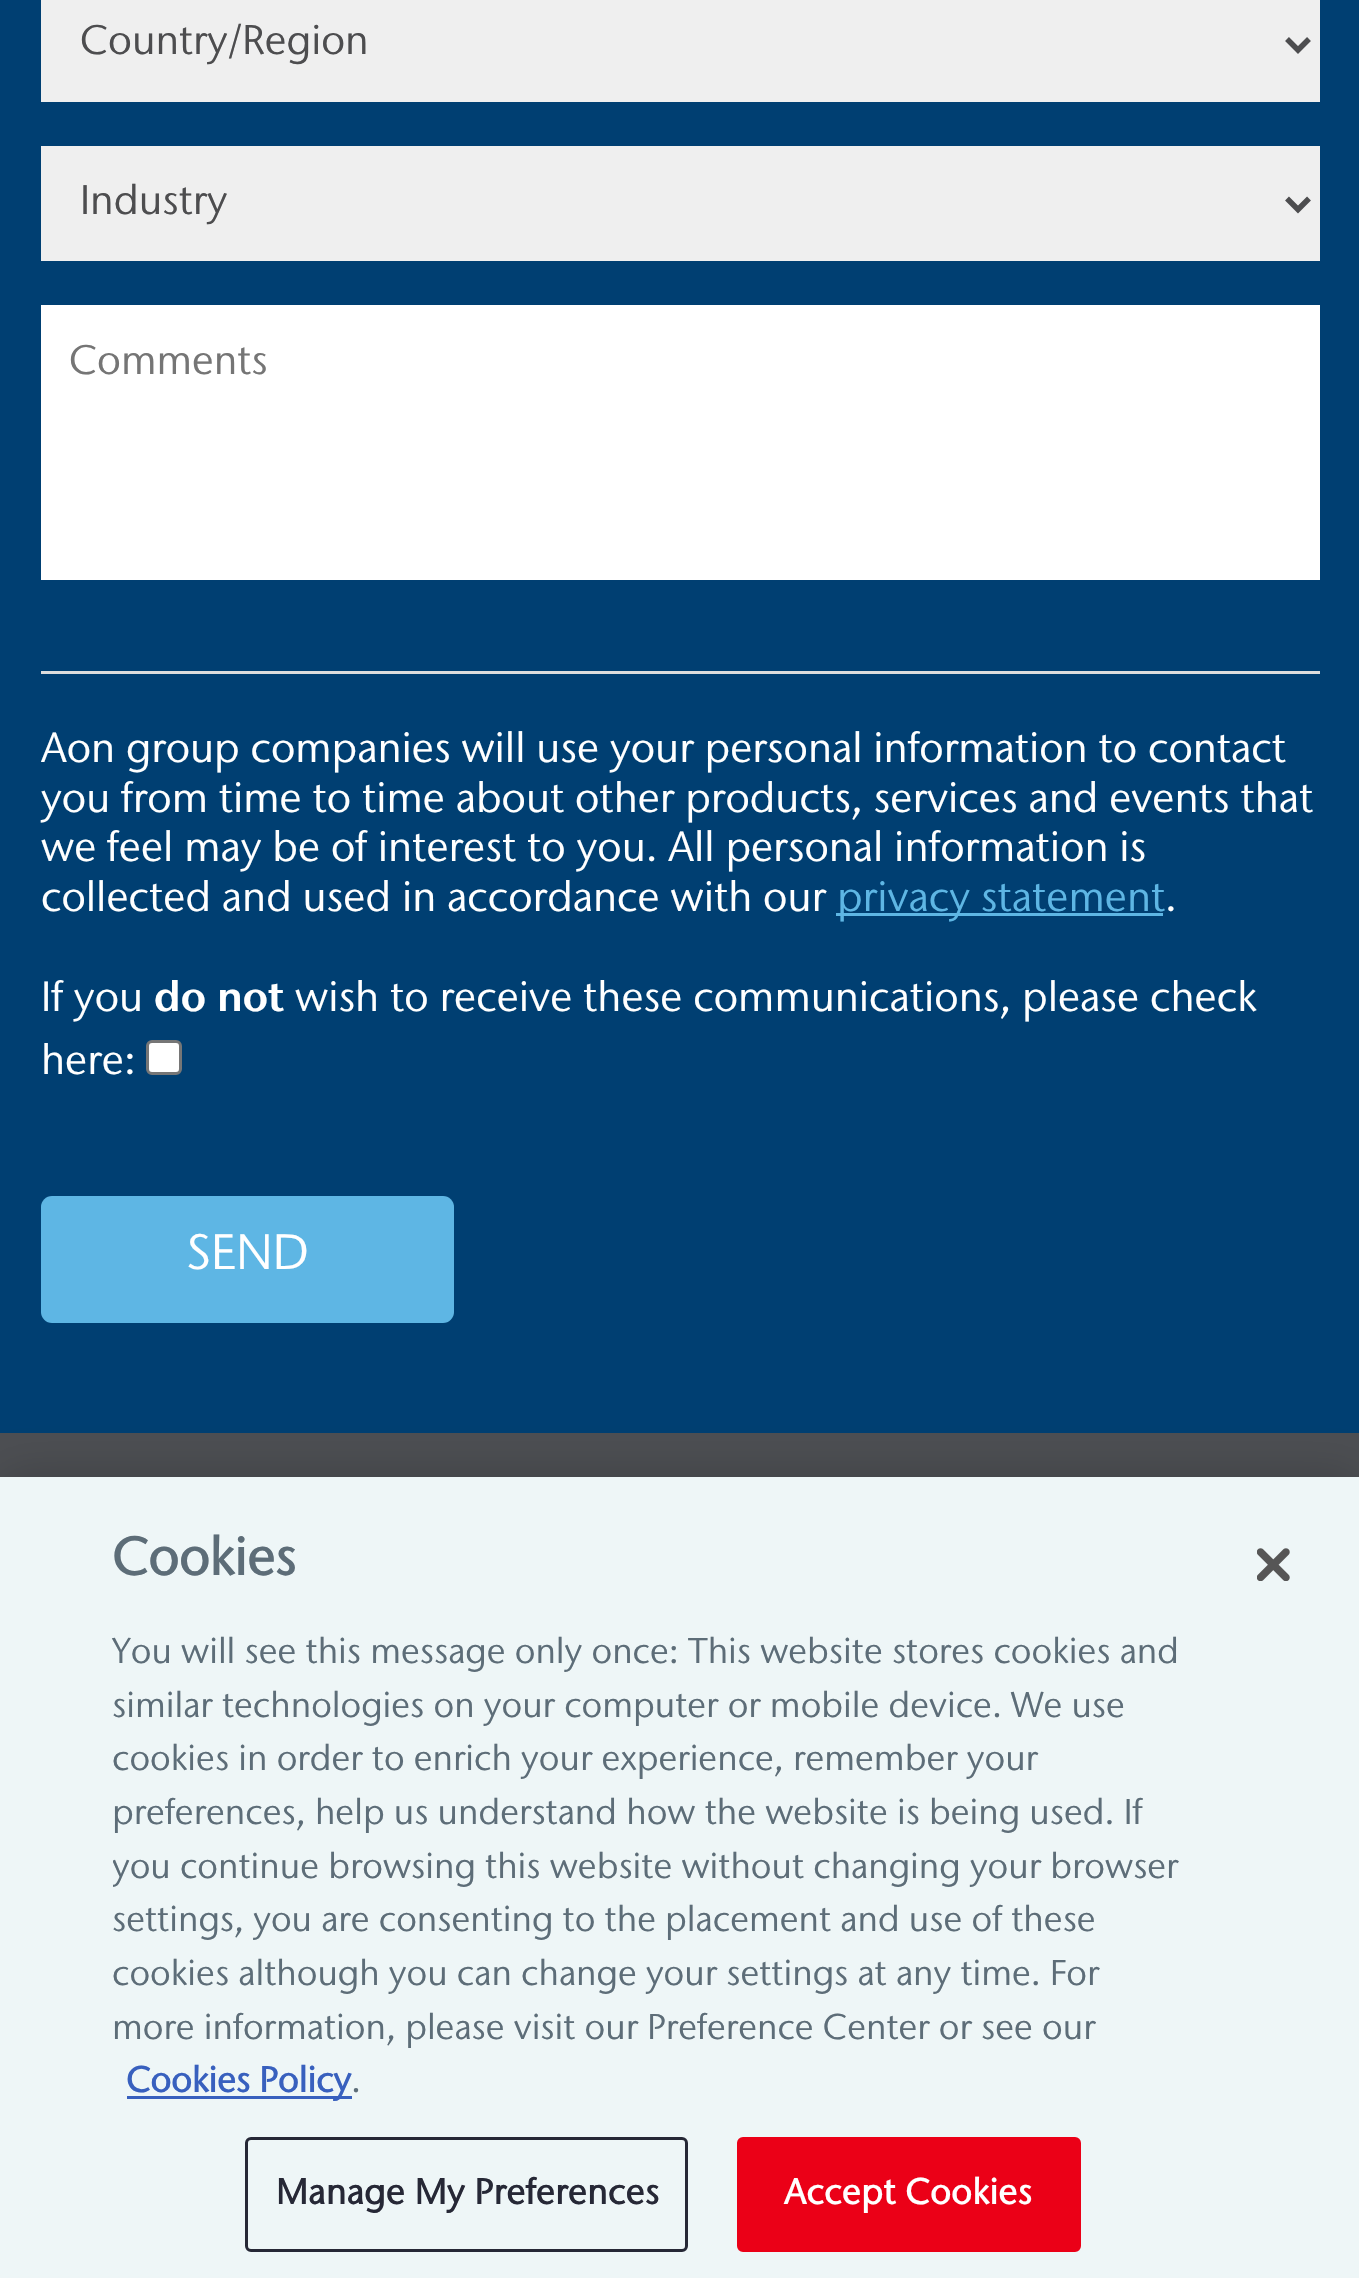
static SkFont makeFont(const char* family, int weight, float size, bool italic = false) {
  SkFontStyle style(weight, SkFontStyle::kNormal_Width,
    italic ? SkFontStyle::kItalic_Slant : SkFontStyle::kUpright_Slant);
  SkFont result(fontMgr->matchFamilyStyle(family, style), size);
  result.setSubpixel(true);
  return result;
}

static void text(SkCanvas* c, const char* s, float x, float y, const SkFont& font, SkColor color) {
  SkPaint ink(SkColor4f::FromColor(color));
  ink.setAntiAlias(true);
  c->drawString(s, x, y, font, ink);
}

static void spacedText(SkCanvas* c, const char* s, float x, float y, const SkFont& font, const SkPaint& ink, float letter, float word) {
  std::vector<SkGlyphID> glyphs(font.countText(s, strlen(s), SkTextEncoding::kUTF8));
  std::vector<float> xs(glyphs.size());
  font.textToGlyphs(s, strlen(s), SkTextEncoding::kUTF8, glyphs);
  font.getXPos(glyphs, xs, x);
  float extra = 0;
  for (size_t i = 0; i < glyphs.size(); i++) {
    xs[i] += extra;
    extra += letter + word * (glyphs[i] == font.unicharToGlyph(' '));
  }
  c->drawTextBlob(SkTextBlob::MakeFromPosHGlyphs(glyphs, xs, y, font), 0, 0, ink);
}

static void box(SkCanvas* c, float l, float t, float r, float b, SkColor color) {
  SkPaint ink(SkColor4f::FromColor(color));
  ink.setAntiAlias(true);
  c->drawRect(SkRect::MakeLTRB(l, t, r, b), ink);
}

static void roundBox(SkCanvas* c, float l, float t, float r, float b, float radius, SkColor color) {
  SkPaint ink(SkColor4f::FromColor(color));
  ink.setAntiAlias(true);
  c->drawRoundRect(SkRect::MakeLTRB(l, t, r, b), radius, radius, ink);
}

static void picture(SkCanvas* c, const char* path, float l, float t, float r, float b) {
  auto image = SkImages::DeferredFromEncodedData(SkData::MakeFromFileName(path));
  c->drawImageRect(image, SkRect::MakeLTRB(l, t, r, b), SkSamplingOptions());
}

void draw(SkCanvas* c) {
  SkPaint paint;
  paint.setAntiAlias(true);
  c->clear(0xff003f72);
  box(c, 41, 0, 1320, 102, 0xffefefef);
  paint.setStyle(SkPaint::kStroke_Style);
  paint.setStrokeWidth(5.5f);
  paint.setColor(0xff4d4d4f);
  c->drawPath(SkPathBuilder().moveTo(1287, 39).lineTo(1298, 50).lineTo(1309, 39).detach(), paint);
  SkFont face1 = makeFont("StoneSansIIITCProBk", 400, 41.25f);
  text(c, "Country/Region", 80, 54, face1, 0xff4d4d4f);
  box(c, 41, 146, 1320, 261, 0xffefefef);
  c->drawPath(SkPathBuilder().moveTo(1287, 198.5f).lineTo(1298, 209.5f).lineTo(1309, 198.5f).detach(), paint);
  text(c, "Industry", 80, 214, face1, 0xff4d4d4f);
  box(c, 41, 305, 1320, 580, 0xffffffff);
  text(c, "Comments", 69, 374, face1, 0xff757575);
  box(c, 41, 671, 1320, 674, 0xffdddddd);
  SkFont face2 = makeFont("StoneSansIIITCProBk", 400, 42.1f);
  text(c, "Aon group companies will use your personal information to contact", 41, 762, face2, 0xffffffff);
  text(c, "you from time to time about other products, services and events that", 41, 812, face2, 0xffffffff);
  text(c, "we feel may be of interest to you. All personal information is", 41, 861, face2, 0xffffffff);
  text(c, "collected and used in accordance with our", 41, 911, face2, 0xffffffff);
  box(c, 836, 913, 1163, 916, 0xff5eb6e4);
  text(c, "privacy statement", 837, 911, face2, 0xff5eb6e4);
  text(c, ".", 1165, 911, face2, 0xffffffff);
  text(c, "If you", 41, 1011, face2, 0xffffffff);
  SkFont face3 = makeFont("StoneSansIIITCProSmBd", 400, 42.1f);
  text(c, "do not", 154, 1011, face3, 0xffffffff);
  text(c, "wish to receive these communications, please check", 295, 1011, face2, 0xffffffff);
  text(c, "here:", 41, 1074, face2, 0xffffffff);
  paint.setStyle(SkPaint::kFill_Style);
  paint.setColor(0xffffffff);
  c->drawRoundRect(SkRect::MakeLTRB(147.5f, 1041.5f, 180.5f, 1073.5f), 4.5f, 4.5f, paint);
  paint.setStyle(SkPaint::kStroke_Style);
  paint.setStrokeWidth(3);
  paint.setColor(0xff767676);
  c->drawRoundRect(SkRect::MakeLTRB(147.5f, 1041.5f, 180.5f, 1073.5f), 4.5f, 4.5f, paint);
  roundBox(c, 41, 1196, 454, 1323, 11, 0xff5eb6e4);
  SkFont face4 = makeFont("StoneSansIIITCProBk", 400, 49.5f);
  text(c, "SEND", 186, 1269, face4, 0xffffffff);
  box(c, 0, 1433, 1359, 1477, 0xff4d4f53);
  paint.setStyle(SkPaint::kFill_Style);
  paint.setColor(0x33000000);
  paint.setMaskFilter(SkMaskFilter::MakeBlur(kNormal_SkBlurStyle, 25));
  c->drawRect(SkRect::MakeLTRB(0, 1477, 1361, 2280), paint);
  paint.setMaskFilter(nullptr);
  box(c, 0, 1477, 1359, 2278, 0xffeef6f7);
  SkFont face5 = makeFont("StoneSansIIITCProBk", 700, 53);
  text(c, "Cookies", 112, 1575, face5, 0xff5d6d78);
  SkFont face6 = makeFont("StoneSansIIITCProBk", 400, 35.75f);
  text(c, "You will see this message only once:", 112, 1663, face6, 0xff5d6d78);
  text(c, "This website stores cookies and", 688, 1663, face6, 0xff5d6d78);
  text(c, "similar technologies on your computer or mobile device. We use", 112, 1717, face6, 0xff5d6d78);
  text(c, "cookies in order to enrich your experience, remember your", 112, 1770, face6, 0xff5d6d78);
  text(c, "preferences, help us understand how the website is being used. If", 112, 1824, face6, 0xff5d6d78);
  c->save();
  c->clipRect(SkRect::MakeLTRB(113, 1532, 1188, 2109));
  text(c, "you continue browsing this website without changing your browser", 112, 1878, face6, 0xff5d6d78);
  c->restore();
  text(c, "settings, you are consenting to the placement and use of these", 112, 1931, face6, 0xff5d6d78);
  text(c, "cookies although you can change your settings at any time.", 112, 1985, face6, 0xff5d6d78);
  text(c, "For", 1050, 1985, face6, 0xff5d6d78);
  text(c, "more information, please visit our Preference Center or see our", 112, 2039, face6, 0xff5d6d78);
  box(c, 127, 2096, 352, 2099, 0xff3860be);
  SkFont face7 = makeFont("StoneSansIIITCProBk", 700, 35.75f);
  text(c, "Cookies Policy", 126, 2092, face7, 0xff3860be);
  text(c, ".", 351, 2092, face6, 0xff5d6d78);
  paint.setStyle(SkPaint::kStroke_Style);
  paint.setColor(0xff262836);
  c->drawRoundRect(SkRect::MakeLTRB(246.5f, 2138.5f, 686.5f, 2250.5f), 4.5f, 4.5f, paint);
  paint.setStyle(SkPaint::kFill_Style);
  spacedText(c, "Manage My Preferences", 276, 2204, face7, paint, 0.4f, 0);
  paint.setColor(0xffeb0017);
  c->drawRoundRect(SkRect::MakeLTRB(738.5f, 2138.5f, 1079.5f, 2250.5f), 4.5f, 4.5f, paint);
  paint.setStyle(SkPaint::kStroke_Style);
  c->drawRoundRect(SkRect::MakeLTRB(738.5f, 2138.5f, 1079.5f, 2250.5f), 4.5f, 4.5f, paint);
  paint.setStyle(SkPaint::kFill_Style);
  paint.setColor(0xffffffff);
  spacedText(c, "Accept Cookies", 784, 2204, face7, paint, 0.4f, 0);
  picture(c, "img_01.png", 1257, 1548, 1290, 1581);
}
